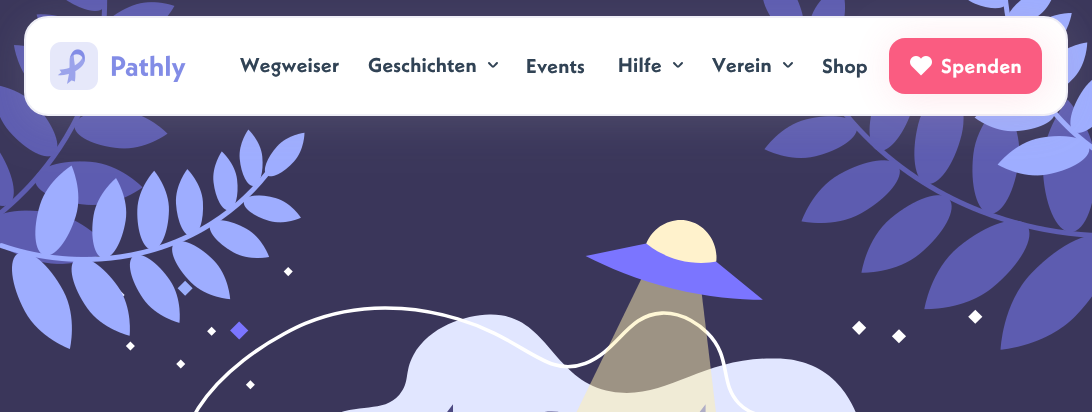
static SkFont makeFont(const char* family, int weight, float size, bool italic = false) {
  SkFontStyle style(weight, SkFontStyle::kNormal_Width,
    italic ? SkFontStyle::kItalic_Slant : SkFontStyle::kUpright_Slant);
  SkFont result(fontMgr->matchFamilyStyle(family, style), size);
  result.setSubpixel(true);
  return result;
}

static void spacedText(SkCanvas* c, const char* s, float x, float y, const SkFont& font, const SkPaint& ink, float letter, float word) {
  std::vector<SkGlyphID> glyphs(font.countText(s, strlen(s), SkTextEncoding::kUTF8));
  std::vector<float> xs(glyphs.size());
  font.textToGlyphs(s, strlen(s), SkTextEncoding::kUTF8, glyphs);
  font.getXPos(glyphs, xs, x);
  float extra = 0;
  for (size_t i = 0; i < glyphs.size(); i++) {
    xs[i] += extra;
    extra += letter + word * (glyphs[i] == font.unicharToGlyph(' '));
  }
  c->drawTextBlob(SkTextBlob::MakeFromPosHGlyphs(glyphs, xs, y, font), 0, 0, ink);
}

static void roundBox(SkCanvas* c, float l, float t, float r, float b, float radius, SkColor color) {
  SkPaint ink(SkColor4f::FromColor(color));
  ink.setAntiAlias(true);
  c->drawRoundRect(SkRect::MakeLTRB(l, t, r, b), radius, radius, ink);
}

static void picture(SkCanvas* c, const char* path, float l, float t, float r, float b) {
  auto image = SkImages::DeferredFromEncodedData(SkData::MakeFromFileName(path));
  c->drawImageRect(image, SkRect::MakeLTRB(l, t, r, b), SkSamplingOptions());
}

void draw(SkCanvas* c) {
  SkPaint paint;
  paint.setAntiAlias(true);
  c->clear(0xff3a365a);
  picture(c, "img_03.png", 118, 220, 983, 412);
  picture(c, "img_01.png", 0, 0, 305, 349);
  picture(c, "img_02.png", 763, 0, 1092, 350);
  paint.setColor(0x29b3b2be);
  paint.setMaskFilter(SkMaskFilter::MakeBlur(kNormal_SkBlurStyle, 20));
  c->drawRoundRect(SkRect::MakeLTRB(24, 24, 1068, 124), 24, 24, paint);
  paint.setMaskFilter(nullptr);
  paint.setColor(0xffffffff);
  c->drawRoundRect(SkRect::MakeLTRB(25, 17, 1067, 115), 23, 23, paint);
  paint.setStyle(SkPaint::kStroke_Style);
  paint.setStrokeWidth(2);
  paint.setColor(0xffefeff7);
  c->drawRoundRect(SkRect::MakeLTRB(25, 17, 1067, 115), 23, 23, paint);
  picture(c, "img_04.png", 50, 42, 186, 90);
  SkFont face1 = makeFont("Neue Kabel", 700, 20);
  paint.setStyle(SkPaint::kFill_Style);
  paint.setColor(0xff314355);
  spacedText(c, "Wegweiser", 240, 72, face1, paint, 0.25f, 0);
  spacedText(c, "Geschichten", 368, 72, face1, paint, 0.25f, 0);
  paint.setStyle(SkPaint::kStroke_Style);
  paint.setStrokeCap(SkPaint::kRound_Cap);
  paint.setStrokeJoin(SkPaint::kRound_Join);
  c->drawPath(SkPathBuilder().moveTo(497, 63).cubicTo(492, 68, 494, 68, 489, 63).detach(), paint);
  paint.setStyle(SkPaint::kFill_Style);
  spacedText(c, "Events", 526, 73, face1, paint, 0.25f, 0);
  spacedText(c, "Hilfe", 618, 72, face1, paint, 0.25f, 0);
  paint.setStyle(SkPaint::kStroke_Style);
  c->drawPath(SkPathBuilder().moveTo(682, 63).cubicTo(677, 68, 679, 68, 674, 63).detach(), paint);
  paint.setStyle(SkPaint::kFill_Style);
  spacedText(c, "Verein", 712, 72, face1, paint, 0.25f, 0);
  paint.setStyle(SkPaint::kStroke_Style);
  c->drawPath(SkPathBuilder().moveTo(792, 63).cubicTo(787, 68, 789, 68, 784, 63).detach(), paint);
  paint.setStyle(SkPaint::kFill_Style);
  spacedText(c, "Shop", 822, 73, face1, paint, 0.25f, 0);
  paint.setColor(0x29fa5c81);
  paint.setMaskFilter(SkMaskFilter::MakeBlur(kNormal_SkBlurStyle, 20));
  c->drawRoundRect(SkRect::MakeLTRB(892, 41, 1045, 97), 16, 16, paint);
  paint.setMaskFilter(nullptr);
  roundBox(c, 889, 38, 1042, 94, 16, 0xfffa5c81);
  picture(c, "img_05.png", 910, 56, 932, 76);
  paint.setColor(0xffffffff);
  spacedText(c, "Spenden", 941, 73, face1, paint, 0.5f, 0);
}
